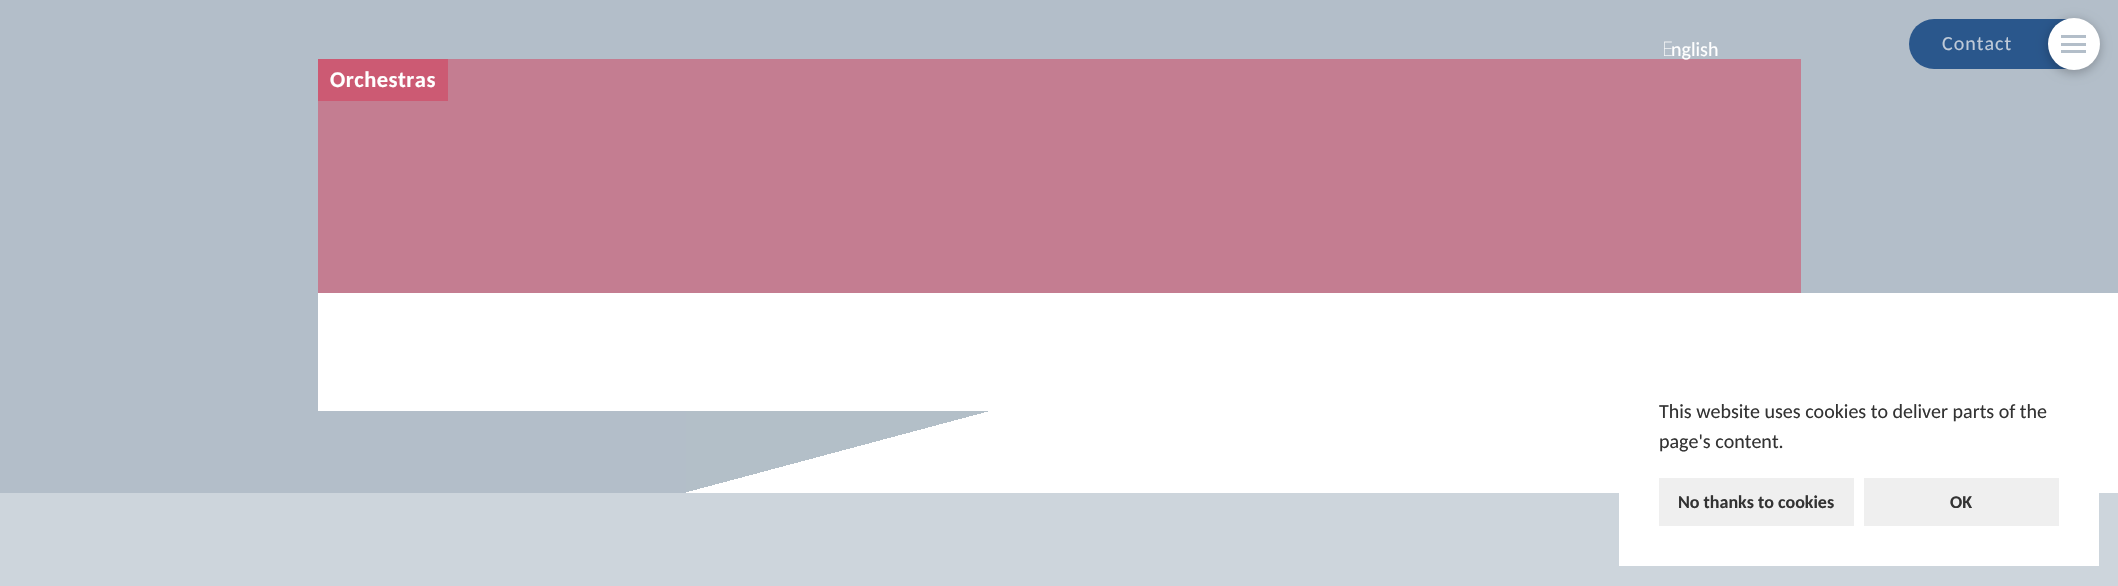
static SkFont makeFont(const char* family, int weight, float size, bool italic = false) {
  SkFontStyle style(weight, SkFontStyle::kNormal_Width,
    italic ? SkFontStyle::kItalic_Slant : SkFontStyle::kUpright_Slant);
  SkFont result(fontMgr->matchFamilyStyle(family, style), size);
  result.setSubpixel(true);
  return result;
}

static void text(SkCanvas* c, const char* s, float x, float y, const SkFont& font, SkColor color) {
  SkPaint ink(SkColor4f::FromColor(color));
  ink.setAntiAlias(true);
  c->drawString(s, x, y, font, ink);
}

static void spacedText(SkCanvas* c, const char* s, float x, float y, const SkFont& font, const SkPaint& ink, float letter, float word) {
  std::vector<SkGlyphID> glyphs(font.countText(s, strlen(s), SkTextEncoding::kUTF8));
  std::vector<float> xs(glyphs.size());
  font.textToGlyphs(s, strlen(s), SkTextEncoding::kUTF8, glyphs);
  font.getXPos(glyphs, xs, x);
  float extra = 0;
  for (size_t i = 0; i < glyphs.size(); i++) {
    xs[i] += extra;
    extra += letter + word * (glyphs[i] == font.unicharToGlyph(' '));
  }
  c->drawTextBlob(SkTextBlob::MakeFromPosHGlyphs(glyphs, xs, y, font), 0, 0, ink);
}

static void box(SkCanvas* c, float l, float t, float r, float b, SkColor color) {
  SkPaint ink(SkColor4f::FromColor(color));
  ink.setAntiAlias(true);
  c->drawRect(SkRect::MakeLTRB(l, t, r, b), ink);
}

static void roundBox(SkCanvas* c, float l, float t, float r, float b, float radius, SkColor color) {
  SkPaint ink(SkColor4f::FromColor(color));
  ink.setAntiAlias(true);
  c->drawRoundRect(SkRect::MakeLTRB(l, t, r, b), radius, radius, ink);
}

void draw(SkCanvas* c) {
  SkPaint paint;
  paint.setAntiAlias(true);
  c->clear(0xffb3bec9);
  SkFont face1 = makeFont("Noto Sans", 100, 20);
  text(c, "E", 1662, 56, face1, 0xffffffff);
  box(c, 318, 59, 1801, 293, 0xffc47d91);
  SkFont face2 = makeFont("Carlito", 400, 20);
  text(c, "nglish", 1671, 56, face2, 0xffffffff);
  roundBox(c, 1909, 19, 2091, 69, 25, 0xff2a578c);
  paint.setColor(0xffbfcad8);
  spacedText(c, "Contact", 1942, 50, face2, paint, 1, 0);
  paint.setColor(0x40000000);
  paint.setMaskFilter(SkMaskFilter::MakeBlur(kNormal_SkBlurStyle, 5.5f));
  c->drawRoundRect(SkRect::MakeLTRB(2048, 20, 2100, 73), 26, 26, paint);
  paint.setMaskFilter(nullptr);
  paint.setColor(0xffffffff);
  c->drawCircle(2074, 44, 26, paint);
  box(c, 2061, 35, 2086, 38, 0xffb3bec9);
  box(c, 2061, 43, 2086, 46, 0xffb3bec9);
  box(c, 2061, 50, 2086, 53, 0xffb3bec9);
  box(c, 318, 59, 448, 101, 0xffcc5a73);
  SkFont face3 = makeFont("Carlito", 700, 22.5f);
  spacedText(c, "Orchestras", 330, 87, face3, paint, 0.5f, 0);
  {
    const SkColor colors[] = {0xffb3bfc8, 0xffffffff};
    const float stops[] = {0.5f, 0.5f};
    const SkPoint ends[] = {{963, 34}, {1155, 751}};
    paint.setShader(SkGradientShader::MakeLinear(ends, colors, stops, 2, SkTileMode::kClamp));
    paint.setAlpha(255);
  }
  c->drawRect(SkRect::MakeLTRB(686, 293, 2118, 493), paint);
  box(c, 318, 293, 1429, 411, 0xffffffff);
  box(c, 0, 493, 2118, 586, 0xffcdd5dc);
  box(c, 1619, 493, 2099, 566, 0xffffffff);
  text(c, "This website uses cookies to deliver parts of the", 1659, 418, face2, 0xff333333);
  text(c, "page's content.", 1659, 448, face2, 0xff333333);
  box(c, 1659, 478, 1854, 526, 0xffefefef);
  SkFont face4 = makeFont("Carlito", 700, 18);
  text(c, "No thanks to cookies", 1678, 508, face4, 0xff333333);
  box(c, 1864, 478, 2059, 526, 0xffefefef);
  text(c, "OK", 1950, 508, face4, 0xff333333);
}
